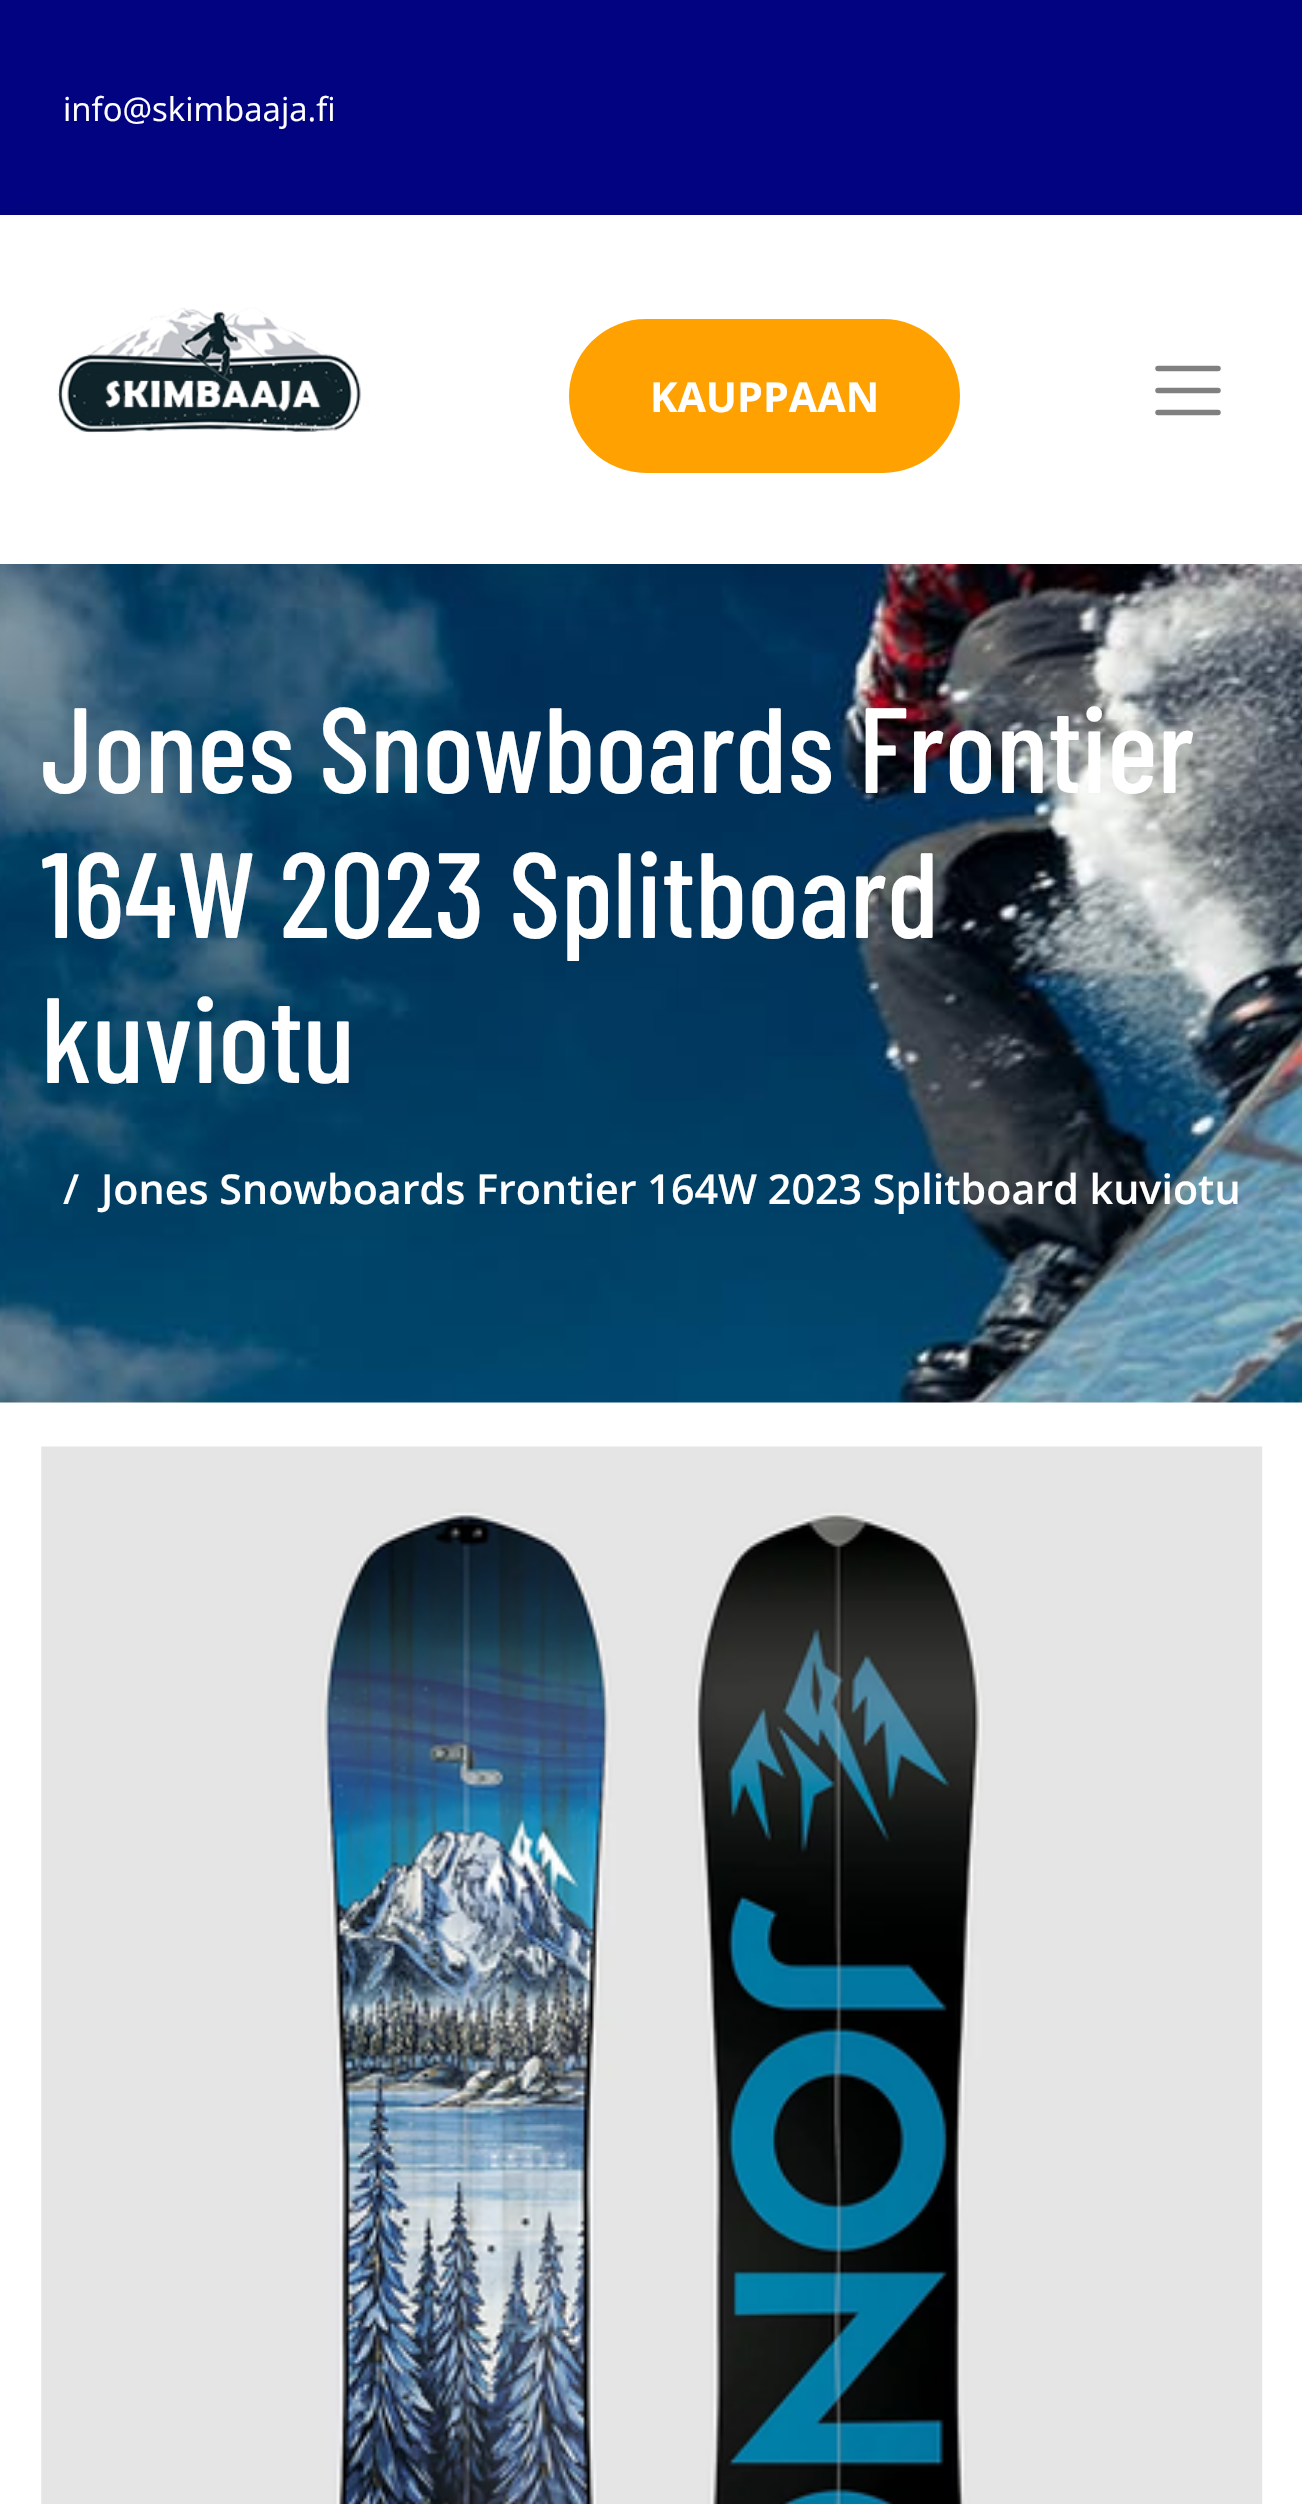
static SkFont makeFont(const char* family, int weight, float size, bool italic = false) {
  SkFontStyle style(weight, SkFontStyle::kNormal_Width,
    italic ? SkFontStyle::kItalic_Slant : SkFontStyle::kUpright_Slant);
  SkFont result(fontMgr->matchFamilyStyle(family, style), size);
  result.setSubpixel(true);
  return result;
}

static void text(SkCanvas* c, const char* s, float x, float y, const SkFont& font, SkColor color) {
  SkPaint ink(SkColor4f::FromColor(color));
  ink.setAntiAlias(true);
  c->drawString(s, x, y, font, ink);
}

static void box(SkCanvas* c, float l, float t, float r, float b, SkColor color) {
  SkPaint ink(SkColor4f::FromColor(color));
  ink.setAntiAlias(true);
  c->drawRect(SkRect::MakeLTRB(l, t, r, b), ink);
}

static void picture(SkCanvas* c, const char* path, float l, float t, float r, float b) {
  auto image = SkImages::DeferredFromEncodedData(SkData::MakeFromFileName(path));
  c->drawImageRect(image, SkRect::MakeLTRB(l, t, r, b), SkSamplingOptions());
}

void draw(SkCanvas* c) {
  SkPaint paint;
  paint.setAntiAlias(true);
  c->clear(0xffffffff);
  box(c, 0, 0, 1302, 215, 0xff020381);
  SkFont face1 = makeFont("Open Sans", 400, 33);
  text(c, "info@skimbaaja.fi", 63, 121, face1, 0xffffffff);
  picture(c, "img_02.png", 0, 564, 1302, 1403);
  paint.setColor(0x17000000);
  paint.setMaskFilter(SkMaskFilter::MakeBlur(kNormal_SkBlurStyle, 27.5f));
  c->drawRect(SkRect::MakeLTRB(0, 239, 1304, 589), paint);
  paint.setMaskFilter(nullptr);
  box(c, 0, 215, 1302, 564, 0xffffffff);
  picture(c, "img_01.png", 57, 307, 370, 433);
  paint.setColor(0xffffa201);
  c->drawRoundRect(SkRect::MakeLTRB(570.5f, 320.5f, 958.5f, 471.5f), 75.5f, 75.5f, paint);
  paint.setStyle(SkPaint::kStroke_Style);
  paint.setStrokeWidth(3);
  c->drawRoundRect(SkRect::MakeLTRB(570.5f, 320.5f, 958.5f, 471.5f), 75.5f, 75.5f, paint);
  SkFont face2 = makeFont("Open Sans", 700, 41.25f);
  text(c, "KAUPPAAN", 650, 412, face2, 0xffffffff);
  paint.setStrokeWidth(5.5f);
  paint.setStrokeCap(SkPaint::kRound_Cap);
  paint.setColor(0xff808080);
  c->drawPath(SkPathBuilder().moveTo(1158, 368.5f).lineTo(1218, 368.5f).moveTo(1158, 390.5f).lineTo(1218, 390.5f).moveTo(1158, 412.5f).lineTo(1218, 412.5f).detach(), paint);
  SkFont face3 = makeFont("Barlow Condensed", 500, 121);
  text(c, "Jones Snowboards Frontier", 41, 793, face3, 0xffffffff);
  text(c, "164W 2023 Splitboard", 41, 938, face3, 0xffffffff);
  text(c, "kuviotu", 41, 1083, face3, 0xffffffff);
  SkFont face4 = makeFont("Open Sans", 600, 41.25f);
  text(c, "/", 63, 1204, face4, 0xffffffff);
  text(c, "Jones Snowboards Frontier 164W 2023 Splitboard kuviotu", 101, 1204, face4, 0xffffffff);
  picture(c, "img_03.png", 41, 1446, 1263, 2504);
}
